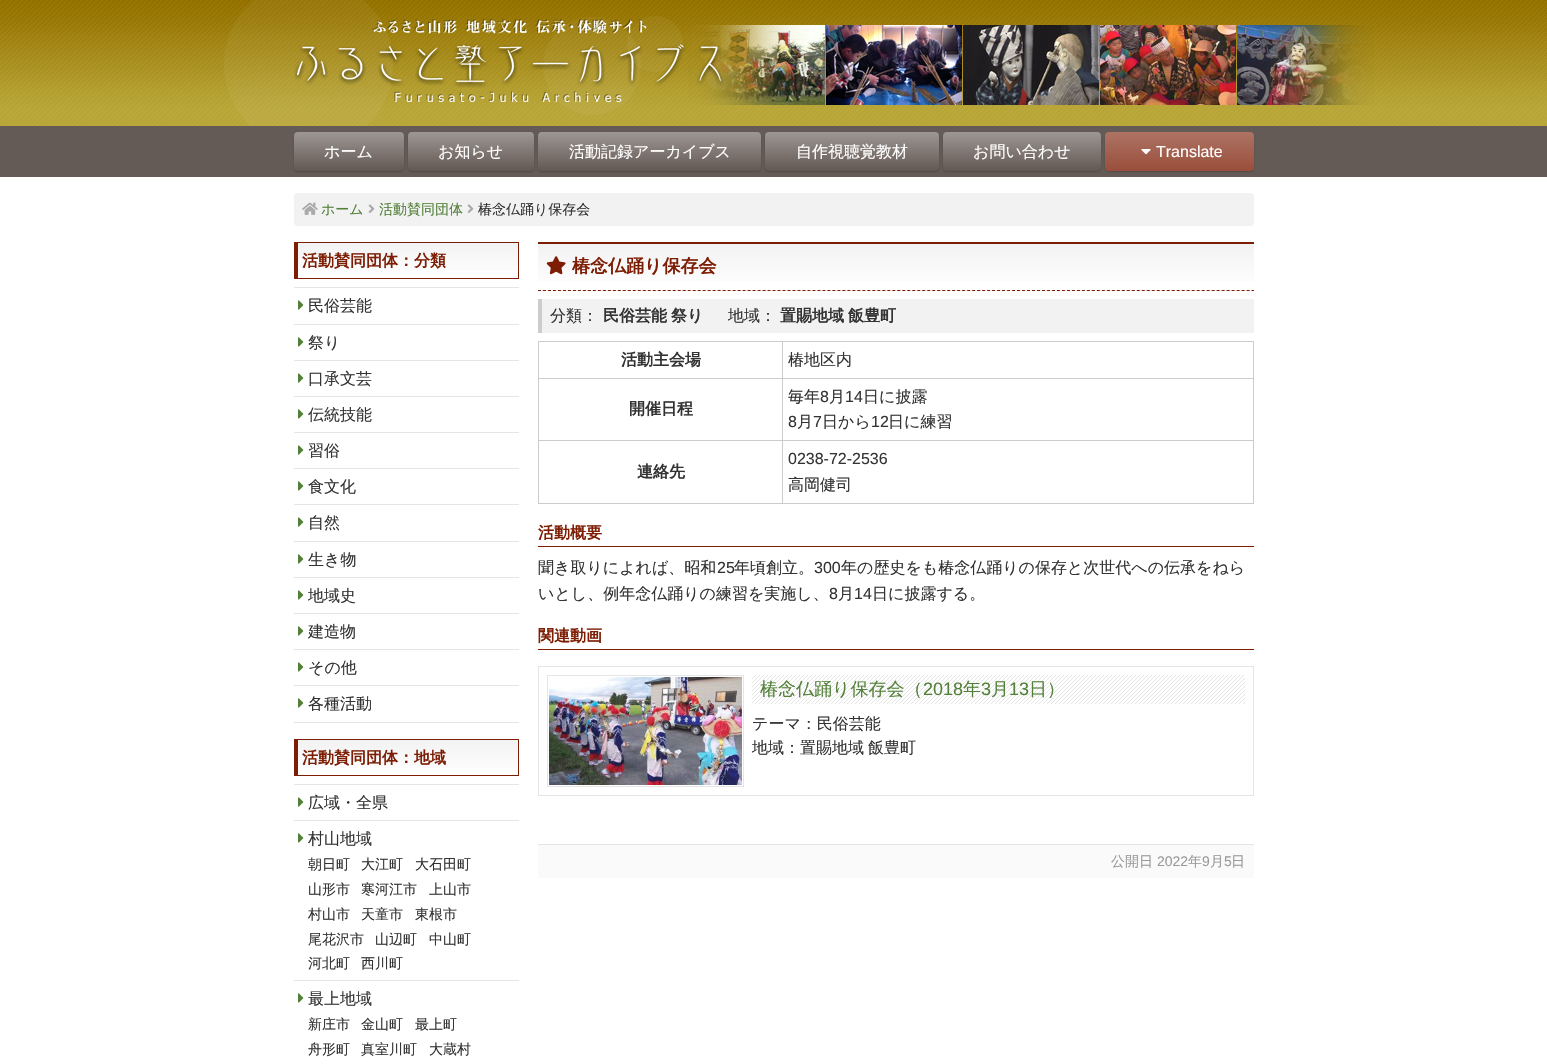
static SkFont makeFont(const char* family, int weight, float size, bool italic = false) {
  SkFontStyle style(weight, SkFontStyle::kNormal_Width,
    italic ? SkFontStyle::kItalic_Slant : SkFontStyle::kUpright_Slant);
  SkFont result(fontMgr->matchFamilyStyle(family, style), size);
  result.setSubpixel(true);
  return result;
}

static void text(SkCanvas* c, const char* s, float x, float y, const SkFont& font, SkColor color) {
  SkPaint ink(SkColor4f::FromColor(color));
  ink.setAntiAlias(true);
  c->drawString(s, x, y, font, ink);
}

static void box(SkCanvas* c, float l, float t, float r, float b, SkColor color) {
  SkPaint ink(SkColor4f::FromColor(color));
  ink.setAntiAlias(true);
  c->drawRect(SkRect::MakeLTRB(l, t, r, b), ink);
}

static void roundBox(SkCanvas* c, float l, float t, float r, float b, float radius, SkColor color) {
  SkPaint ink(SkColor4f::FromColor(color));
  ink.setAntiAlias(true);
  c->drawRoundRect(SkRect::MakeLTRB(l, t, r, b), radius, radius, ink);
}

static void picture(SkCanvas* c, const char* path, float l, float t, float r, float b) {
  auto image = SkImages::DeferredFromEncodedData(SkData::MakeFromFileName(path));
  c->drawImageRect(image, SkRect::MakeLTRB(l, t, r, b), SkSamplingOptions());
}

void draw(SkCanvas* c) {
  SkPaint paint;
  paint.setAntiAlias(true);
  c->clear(0xffffffff);
  picture(c, "img_01.png", 0, 0, 1547, 126);
  picture(c, "img_02.png", 294, 19, 724, 102);
  box(c, 0, 126, 1547, 177, 0xff655b56);
  paint.setColor(0x33000000);
  paint.setMaskFilter(SkMaskFilter::MakeBlur(kNormal_SkBlurStyle, 1));
  c->drawRoundRect(SkRect::MakeLTRB(294, 133, 404, 172), 4, 4, paint);
  paint.setMaskFilter(nullptr);
  {
    const SkColor colors[] = {0xff9d9794, 0xff635853};
    const float stops[] = {0, 1};
    const SkPoint ends[] = {{349, 132}, {349, 171}};
    paint.setShader(SkGradientShader::MakeLinear(ends, colors, stops, 2, SkTileMode::kClamp));
    paint.setAlpha(255);
  }
  c->drawRoundRect(SkRect::MakeLTRB(294, 132, 404, 171), 4, 4, paint);
  SkFont face1 = makeFont("WenQuanYi Zen Hei", 500, 16);
  text(c, "ホーム", 324, 157, face1, 0xffffffff);
  paint.setShader(nullptr);
  paint.setColor(0x33000000);
  paint.setMaskFilter(SkMaskFilter::MakeBlur(kNormal_SkBlurStyle, 1));
  c->drawRoundRect(SkRect::MakeLTRB(408, 133, 534, 172), 4, 4, paint);
  paint.setMaskFilter(nullptr);
  {
    const SkColor colors[] = {0xff9d9794, 0xff635853};
    const float stops[] = {0, 1};
    const SkPoint ends[] = {{471, 132}, {471, 171}};
    paint.setShader(SkGradientShader::MakeLinear(ends, colors, stops, 2, SkTileMode::kClamp));
    paint.setAlpha(255);
  }
  c->drawRoundRect(SkRect::MakeLTRB(408, 132, 534, 171), 4, 4, paint);
  text(c, "お知らせ", 438, 157, face1, 0xffffffff);
  paint.setShader(nullptr);
  paint.setColor(0x33000000);
  paint.setMaskFilter(SkMaskFilter::MakeBlur(kNormal_SkBlurStyle, 1));
  c->drawRoundRect(SkRect::MakeLTRB(538, 133, 761, 172), 4, 4, paint);
  paint.setMaskFilter(nullptr);
  {
    const SkColor colors[] = {0xff9d9794, 0xff635853};
    const float stops[] = {0, 1};
    const SkPoint ends[] = {{650, 132}, {650, 171}};
    paint.setShader(SkGradientShader::MakeLinear(ends, colors, stops, 2, SkTileMode::kClamp));
    paint.setAlpha(255);
  }
  c->drawRoundRect(SkRect::MakeLTRB(538, 132, 761, 171), 4, 4, paint);
  text(c, "活動記録アーカイブス", 569, 157, face1, 0xffffffff);
  paint.setShader(nullptr);
  paint.setColor(0x33000000);
  paint.setMaskFilter(SkMaskFilter::MakeBlur(kNormal_SkBlurStyle, 1));
  c->drawRoundRect(SkRect::MakeLTRB(765, 133, 939, 172), 4, 4, paint);
  paint.setMaskFilter(nullptr);
  {
    const SkColor colors[] = {0xff9d9794, 0xff635853};
    const float stops[] = {0, 1};
    const SkPoint ends[] = {{852, 132}, {852, 171}};
    paint.setShader(SkGradientShader::MakeLinear(ends, colors, stops, 2, SkTileMode::kClamp));
    paint.setAlpha(255);
  }
  c->drawRoundRect(SkRect::MakeLTRB(765, 132, 939, 171), 4, 4, paint);
  text(c, "自作視聴覚教材", 796, 157, face1, 0xffffffff);
  paint.setShader(nullptr);
  paint.setColor(0x33000000);
  paint.setMaskFilter(SkMaskFilter::MakeBlur(kNormal_SkBlurStyle, 1));
  c->drawRoundRect(SkRect::MakeLTRB(943, 133, 1101, 172), 4, 4, paint);
  paint.setMaskFilter(nullptr);
  {
    const SkColor colors[] = {0xff9d9794, 0xff635853};
    const float stops[] = {0, 1};
    const SkPoint ends[] = {{1022, 132}, {1022, 171}};
    paint.setShader(SkGradientShader::MakeLinear(ends, colors, stops, 2, SkTileMode::kClamp));
    paint.setAlpha(255);
  }
  c->drawRoundRect(SkRect::MakeLTRB(943, 132, 1101, 171), 4, 4, paint);
  text(c, "お問い合わせ", 973, 157, face1, 0xffffffff);
  paint.setShader(nullptr);
  paint.setColor(0x33000000);
  paint.setMaskFilter(SkMaskFilter::MakeBlur(kNormal_SkBlurStyle, 1));
  c->drawRoundRect(SkRect::MakeLTRB(1105, 133, 1254, 172), 4, 4, paint);
  paint.setMaskFilter(nullptr);
  {
    const SkColor colors[] = {0xffae7364, 0xff994f3b};
    const float stops[] = {0, 1};
    const SkPoint ends[] = {{1180, 132}, {1180, 171}};
    paint.setShader(SkGradientShader::MakeLinear(ends, colors, stops, 2, SkTileMode::kClamp));
    paint.setAlpha(255);
  }
  c->drawRoundRect(SkRect::MakeLTRB(1105, 132, 1254, 171), 4, 4, paint);
  picture(c, "img_03.png", 1141, 149, 1151, 155);
  SkFont face2 = makeFont("Liberation Sans", 400, 16);
  text(c, "Translate", 1156, 157, face2, 0xffffffff);
  roundBox(c, 294, 193, 1254, 226, 4, 0xfff2f2f2);
  picture(c, "img_04.png", 302, 202, 318, 215);
  SkFont face3 = makeFont("WenQuanYi Zen Hei", 500, 14);
  text(c, "ホーム", 321, 214, face3, 0xff528038);
  picture(c, "img_05.png", 368, 204, 375, 213);
  text(c, "活動賛同団体", 379, 214, face3, 0xff528038);
  picture(c, "img_05.png", 467, 204, 474, 213);
  text(c, "椿念仏踊り保存会", 478, 214, face3, 0xff333333);
  {
    const SkColor colors[] = {0xfff2f2f2, 0xffffffff};
    const float stops[] = {0, 1};
    const SkPoint ends[] = {{408, 243}, {408, 278}};
    paint.setShader(SkGradientShader::MakeLinear(ends, colors, stops, 2, SkTileMode::kClamp));
    paint.setAlpha(255);
  }
  c->drawRect(SkRect::MakeLTRB(298, 243, 518, 271), paint);
  box(c, 294, 242, 519, 243, 0xff7c1d04);
  box(c, 518, 242, 519, 279, 0xff7c1d04);
  box(c, 294, 278, 519, 279, 0xff7c1d04);
  box(c, 294, 242, 298, 279, 0xff7c1d04);
  SkFont face4 = makeFont("WenQuanYi Zen Hei", 700, 16);
  text(c, "活動賛同団体：分類", 302, 266, face4, 0xff7c1d04);
  box(c, 294, 287, 519, 288, 0xffe5e5e5);
  picture(c, "img_06.png", 298, 300, 304, 310);
  text(c, "民俗芸能", 308, 311, face1, 0xff333333);
  box(c, 294, 324, 519, 325, 0xffe5e5e5);
  picture(c, "img_06.png", 298, 337, 304, 347);
  text(c, "祭り", 308, 348, face1, 0xff333333);
  box(c, 294, 360, 519, 361, 0xffe5e5e5);
  picture(c, "img_06.png", 298, 373, 304, 383);
  text(c, "口承文芸", 308, 384, face1, 0xff333333);
  box(c, 294, 396, 519, 397, 0xffe5e5e5);
  picture(c, "img_06.png", 298, 409, 304, 419);
  text(c, "伝統技能", 308, 420, face1, 0xff333333);
  box(c, 294, 432, 519, 433, 0xffe5e5e5);
  picture(c, "img_06.png", 298, 445, 304, 455);
  text(c, "習俗", 308, 456, face1, 0xff333333);
  box(c, 294, 468, 519, 469, 0xffe5e5e5);
  picture(c, "img_06.png", 298, 481, 304, 491);
  text(c, "食文化", 308, 492, face1, 0xff333333);
  box(c, 294, 504, 519, 505, 0xffe5e5e5);
  picture(c, "img_06.png", 298, 517, 304, 527);
  text(c, "自然", 308, 528, face1, 0xff333333);
  box(c, 294, 541, 519, 542, 0xffe5e5e5);
  picture(c, "img_06.png", 298, 554, 304, 564);
  text(c, "生き物", 308, 565, face1, 0xff333333);
  box(c, 294, 577, 519, 578, 0xffe5e5e5);
  picture(c, "img_06.png", 298, 590, 304, 600);
  text(c, "地域史", 308, 601, face1, 0xff333333);
  box(c, 294, 613, 519, 614, 0xffe5e5e5);
  picture(c, "img_06.png", 298, 626, 304, 636);
  text(c, "建造物", 308, 637, face1, 0xff333333);
  box(c, 294, 649, 519, 650, 0xffe5e5e5);
  picture(c, "img_06.png", 298, 662, 304, 672);
  text(c, "その他", 308, 673, face1, 0xff333333);
  box(c, 294, 722, 519, 723, 0xffe5e5e5);
  box(c, 294, 685, 519, 686, 0xffe5e5e5);
  picture(c, "img_06.png", 298, 698, 304, 708);
  text(c, "各種活動", 308, 709, face1, 0xff333333);
  {
    const SkColor colors[] = {0xfff2f2f2, 0xffffffff};
    const float stops[] = {0, 1};
    const SkPoint ends[] = {{408, 740}, {408, 775}};
    paint.setShader(SkGradientShader::MakeLinear(ends, colors, stops, 2, SkTileMode::kClamp));
    paint.setAlpha(255);
  }
  c->drawRect(SkRect::MakeLTRB(298, 740, 518, 768), paint);
  box(c, 294, 739, 519, 740, 0xff7c1d04);
  box(c, 518, 739, 519, 776, 0xff7c1d04);
  box(c, 294, 775, 519, 776, 0xff7c1d04);
  box(c, 294, 739, 298, 776, 0xff7c1d04);
  text(c, "活動賛同団体：地域", 302, 763, face4, 0xff7c1d04);
  box(c, 294, 784, 519, 785, 0xffe5e5e5);
  picture(c, "img_06.png", 298, 797, 304, 807);
  text(c, "広域・全県", 308, 808, face1, 0xff333333);
  box(c, 294, 820, 519, 821, 0xffe5e5e5);
  picture(c, "img_06.png", 298, 833, 304, 843);
  text(c, "村山地域", 308, 844, face1, 0xff333333);
  text(c, "朝日町", 308, 869, face3, 0xff333333);
  text(c, "大江町", 361, 869, face3, 0xff333333);
  text(c, "大石田町", 415, 869, face3, 0xff333333);
  text(c, "山形市", 308, 894, face3, 0xff333333);
  text(c, "寒河江市", 361, 894, face3, 0xff333333);
  text(c, "上山市", 429, 894, face3, 0xff333333);
  text(c, "村山市", 308, 919, face3, 0xff333333);
  text(c, "天童市", 361, 919, face3, 0xff333333);
  text(c, "東根市", 415, 919, face3, 0xff333333);
  text(c, "尾花沢市", 308, 944, face3, 0xff333333);
  text(c, "山辺町", 375, 944, face3, 0xff333333);
  text(c, "中山町", 429, 944, face3, 0xff333333);
  text(c, "河北町", 308, 968, face3, 0xff333333);
  text(c, "西川町", 361, 968, face3, 0xff333333);
  box(c, 294, 980, 519, 981, 0xffe5e5e5);
  picture(c, "img_06.png", 298, 993, 304, 1003);
  text(c, "最上地域", 308, 1004, face1, 0xff333333);
  text(c, "新庄市", 308, 1029, face3, 0xff333333);
  text(c, "金山町", 361, 1029, face3, 0xff333333);
  text(c, "最上町", 415, 1029, face3, 0xff333333);
  text(c, "舟形町", 308, 1054, face3, 0xff333333);
  text(c, "真室川町", 361, 1054, face3, 0xff333333);
  text(c, "大蔵村", 429, 1054, face3, 0xff333333);
  {
    const SkColor colors[] = {0xfff2f2f2, 0xffffffff};
    const float stops[] = {0, 1};
    const SkPoint ends[] = {{896, 244}, {896, 290}};
    paint.setShader(SkGradientShader::MakeLinear(ends, colors, stops, 2, SkTileMode::kClamp));
    paint.setAlpha(255);
  }
  c->drawRect(SkRect::MakeLTRB(538, 244, 1254, 281), paint);
  {
    const SkColor colors[] = {0xfff2f2f2, 0xffffffff};
    const float stops[] = {0, 1};
    const SkPoint ends[] = {{896, 290}, {896, 336}};
    paint.setShader(SkGradientShader::MakeLinear(ends, colors, stops, 2, SkTileMode::kClamp));
    paint.setAlpha(255);
  }
  c->drawRect(SkRect::MakeLTRB(538, 290, 1254, 291), paint);
  box(c, 538, 242, 1254, 244, 0xff7c1d04);
  paint.setStyle(SkPaint::kStroke_Style);
  paint.setStrokeWidth(1);
  paint.setShader(nullptr);
  paint.setColor(0xff7c1d04);
  paint.setPathEffect(SkDashPathEffect::Make({{3, 1.99f}}, 0));
  c->drawPath(SkPathBuilder().moveTo(538, 290.5f).lineTo(1254, 290.5f).detach(), paint);
  paint.setPathEffect(nullptr);
  picture(c, "img_07.png", 546, 256, 566, 275);
  SkFont face5 = makeFont("WenQuanYi Zen Hei", 700, 18);
  text(c, "椿念仏踊り保存会", 572, 272, face5, 0xff7c1d04);
  box(c, 542, 299, 1254, 333, 0xfff2f2f2);
  box(c, 538, 299, 542, 333, 0xffcccccc);
  text(c, "分類：", 550, 321, face1, 0xff333333);
  text(c, "民俗芸能", 603, 321, face4, 0xff333333);
  text(c, "祭り", 671, 321, face4, 0xff333333);
  text(c, "地域：", 728, 321, face1, 0xff333333);
  text(c, "置賜地域", 780, 321, face4, 0xff333333);
  text(c, "飯豊町", 848, 321, face4, 0xff333333);
  box(c, 782, 341, 1254, 342, 0xffcccccc);
  box(c, 782, 378, 1254, 379, 0xffcccccc);
  box(c, 782, 440, 1254, 441, 0xffcccccc);
  box(c, 1253, 440, 1254, 504, 0xffcccccc);
  box(c, 782, 503, 1254, 504, 0xffcccccc);
  box(c, 782, 440, 783, 504, 0xffcccccc);
  box(c, 538, 440, 783, 441, 0xffcccccc);
  box(c, 782, 378, 783, 441, 0xffcccccc);
  box(c, 538, 378, 783, 379, 0xffcccccc);
  box(c, 782, 341, 783, 379, 0xffcccccc);
  box(c, 538, 341, 783, 342, 0xffcccccc);
  box(c, 538, 503, 783, 504, 0xffcccccc);
  box(c, 538, 440, 539, 504, 0xffcccccc);
  box(c, 538, 378, 539, 441, 0xffcccccc);
  box(c, 538, 341, 539, 379, 0xffcccccc);
  text(c, "活動主会場", 621, 365, face4, 0xff333333);
  box(c, 1253, 378, 1254, 441, 0xffcccccc);
  box(c, 1253, 341, 1254, 379, 0xffcccccc);
  text(c, "椿地区内", 788, 365, face1, 0xff333333);
  text(c, "開催日程", 629, 414, face4, 0xff333333);
  text(c, "毎年", 788, 402, face1, 0xff333333);
  text(c, "8", 820, 402, face2, 0xff333333);
  text(c, "月", 829, 402, face1, 0xff333333);
  text(c, "14", 845, 402, face2, 0xff333333);
  text(c, "日に披露", 863, 402, face1, 0xff333333);
  text(c, "8", 788, 427, face2, 0xff333333);
  text(c, "月", 797, 427, face1, 0xff333333);
  text(c, "7", 813, 427, face2, 0xff333333);
  text(c, "日から", 822, 427, face1, 0xff333333);
  text(c, "12", 871, 427, face2, 0xff333333);
  text(c, "日に練習", 888, 427, face1, 0xff333333);
  text(c, "連絡先", 637, 477, face4, 0xff333333);
  text(c, "0238-72-2536", 788, 464, face2, 0xff333333);
  text(c, "高岡健司", 788, 490, face1, 0xff333333);
  box(c, 538, 546, 1254, 547, 0xff7c1d04);
  text(c, "活動概要", 538, 538, face4, 0xff7c1d04);
  text(c, "聞き取りによれば、昭和", 538, 573, face1, 0xff333333);
  text(c, "25", 717, 573, face2, 0xff333333);
  text(c, "年頃創立。", 734, 573, face1, 0xff333333);
  text(c, "300", 814, 573, face2, 0xff333333);
  text(c, "年の歴史をも椿念仏踊りの保存と次世代への伝承をねら", 841, 573, face1, 0xff333333);
  text(c, "いとし、例年念仏踊りの練習を実施し、", 538, 599, face1, 0xff333333);
  text(c, "8", 829, 599, face2, 0xff333333);
  text(c, "月", 838, 599, face1, 0xff333333);
  text(c, "14", 854, 599, face2, 0xff333333);
  text(c, "日に披露する。", 872, 599, face1, 0xff333333);
  box(c, 538, 649, 1254, 650, 0xff7c1d04);
  text(c, "関連動画", 538, 641, face4, 0xff7c1d04);
  paint.setColor(0xffe5e5e5);
  c->drawRect(SkRect::MakeLTRB(538.5f, 666.5f, 1253.5f, 795.5f), paint);
  c->drawRect(SkRect::MakeLTRB(547.5f, 675.5f, 743.5f, 786.5f), paint);
  picture(c, "img_08.png", 549, 677, 742, 785);
  picture(c, "img_09.png", 752, 675, 1245, 704);
  SkFont face6 = makeFont("WenQuanYi Zen Hei", 500, 18);
  text(c, "椿念仏踊り保存会（", 760, 695, face6, 0xff528038);
  SkFont face7 = makeFont("Liberation Sans", 400, 18);
  text(c, "2018", 923, 695, face7, 0xff528038);
  text(c, "年", 963, 695, face6, 0xff528038);
  text(c, "3", 981, 695, face7, 0xff528038);
  text(c, "月", 991, 695, face6, 0xff528038);
  text(c, "13", 1009, 695, face7, 0xff528038);
  text(c, "日）", 1029, 695, face6, 0xff528038);
  text(c, "テーマ：民俗芸能", 752, 729, face1, 0xff333333);
  text(c, "地域：置賜地域", 752, 753, face1, 0xff333333);
  text(c, "飯豊町", 868, 753, face1, 0xff333333);
  box(c, 538, 845, 1254, 878, 0xfffafafa);
  box(c, 538, 844, 1254, 845, 0xffe5e5e5);
  text(c, "公開日", 1111, 866, face3, 0xff999999);
  SkFont face8 = makeFont("Liberation Sans", 400, 14);
  text(c, "2022", 1157, 866, face8, 0xff999999);
  text(c, "年", 1188, 866, face3, 0xff999999);
  text(c, "9", 1202, 866, face8, 0xff999999);
  text(c, "月", 1210, 866, face3, 0xff999999);
  text(c, "5", 1224, 866, face8, 0xff999999);
  text(c, "日", 1231, 866, face3, 0xff999999);
}
